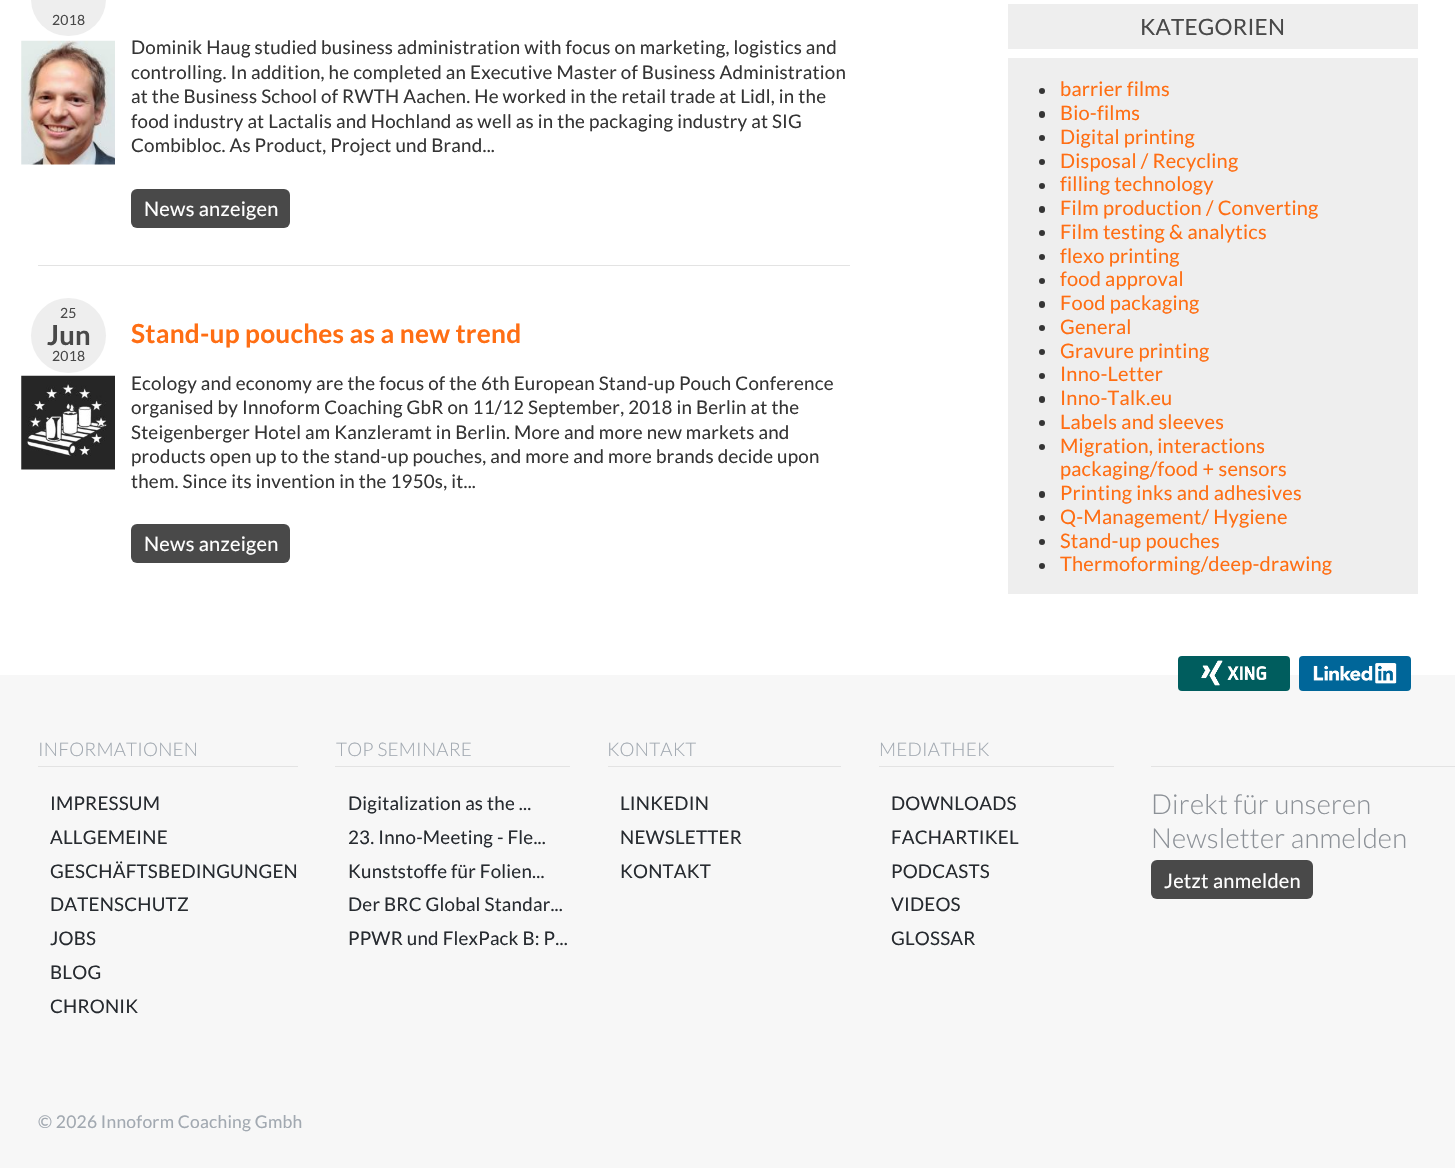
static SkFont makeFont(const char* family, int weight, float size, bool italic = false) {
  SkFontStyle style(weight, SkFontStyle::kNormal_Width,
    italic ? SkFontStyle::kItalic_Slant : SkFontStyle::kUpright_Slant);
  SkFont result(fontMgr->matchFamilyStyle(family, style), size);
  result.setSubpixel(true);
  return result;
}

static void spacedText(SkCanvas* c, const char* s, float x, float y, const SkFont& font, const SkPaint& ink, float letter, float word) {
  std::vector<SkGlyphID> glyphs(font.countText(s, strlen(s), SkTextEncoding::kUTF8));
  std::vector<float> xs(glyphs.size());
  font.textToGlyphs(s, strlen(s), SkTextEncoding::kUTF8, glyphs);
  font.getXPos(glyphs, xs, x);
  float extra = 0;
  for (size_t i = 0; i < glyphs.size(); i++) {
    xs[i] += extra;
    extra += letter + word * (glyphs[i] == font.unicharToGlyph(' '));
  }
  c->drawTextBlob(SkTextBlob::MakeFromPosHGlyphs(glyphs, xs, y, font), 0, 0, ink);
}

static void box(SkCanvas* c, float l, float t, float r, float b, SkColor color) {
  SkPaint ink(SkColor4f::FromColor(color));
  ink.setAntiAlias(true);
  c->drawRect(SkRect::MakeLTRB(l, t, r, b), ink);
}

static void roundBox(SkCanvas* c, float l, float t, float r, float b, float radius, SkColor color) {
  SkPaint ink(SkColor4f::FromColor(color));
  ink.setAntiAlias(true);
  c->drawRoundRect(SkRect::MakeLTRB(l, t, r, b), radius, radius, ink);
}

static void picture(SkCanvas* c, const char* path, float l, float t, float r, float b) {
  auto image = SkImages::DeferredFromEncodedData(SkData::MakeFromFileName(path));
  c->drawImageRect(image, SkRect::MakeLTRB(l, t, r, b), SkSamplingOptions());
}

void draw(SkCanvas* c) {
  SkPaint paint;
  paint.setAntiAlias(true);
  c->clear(0xffffffff);
  roundBox(c, 31, -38, 106, 36, 37.5f, 0xffeeeeee);
  SkFont face1 = makeFont("Lato", 400, 14);
  paint.setColor(0xff494949);
  spacedText(c, "2018", 52, 25, face1, paint, 0.22f, 0);
  picture(c, "img_01.png", 21, 40, 115, 165);
  SkFont face2 = makeFont("Lato", 400, 18.75f);
  paint.setColor(0xff353535);
  spacedText(c, "Dominik Haug studied business administration with focus on marketing, logistics and", 131, 54, face2, paint, 0.22f, 0);
  spacedText(c, "controlling. In addition, he completed an Executive Master of Business Administration", 131, 79, face2, paint, 0.22f, 0);
  spacedText(c, "at the Business School of RWTH Aachen. He worked in the retail trade at Lidl, in the", 131, 103, face2, paint, 0.22f, 0);
  spacedText(c, "food industry at Lactalis and Hochland as well as in the packaging industry at SIG", 131, 128, face2, paint, 0.22f, 0);
  spacedText(c, "Combibloc. As Product, Project und Brand...", 131, 152, face2, paint, 0.22f, 0);
  roundBox(c, 131, 189, 290, 228, 6, 0xff494949);
  SkFont face3 = makeFont("Lato", 400, 20);
  paint.setColor(0xffffffff);
  spacedText(c, "News anzeigen", 144, 216, face3, paint, 0.25f, 0);
  box(c, 38, 265, 850, 266, 0xffe3e3e3);
  paint.setColor(0xffeeeeee);
  c->drawCircle(68.5f, 335.5f, 37.5f, paint);
  paint.setColor(0xff494949);
  spacedText(c, "25", 60, 318, face1, paint, 0.22f, 0);
  SkFont face4 = makeFont("Lato", 700, 27.5f);
  spacedText(c, "Jun", 47, 345, face4, paint, 0.22f, 0);
  spacedText(c, "2018", 52, 361, face1, paint, 0.22f, 0);
  picture(c, "img_02.png", 21, 375, 115, 470);
  SkFont face5 = makeFont("Lato", 700, 26.25f);
  paint.setColor(0xffff6e13);
  spacedText(c, "Stand-up pouches as a new trend", 131, 343, face5, paint, 0.22f, 0);
  paint.setColor(0xff353535);
  spacedText(c, "Ecology and economy are the focus of the 6th European Stand-up Pouch Conference", 131, 390, face2, paint, 0.22f, 0);
  spacedText(c, "organised by Innoform Coaching GbR on 11/12 September, 2018 in Berlin at the", 131, 414, face2, paint, 0.22f, 0);
  spacedText(c, "Steigenberger Hotel am Kanzleramt in Berlin. More and more new markets and", 131, 439, face2, paint, 0.22f, 0);
  spacedText(c, "products open up to the stand-up pouches, and more and more brands decide upon", 131, 463, face2, paint, 0.22f, 0);
  spacedText(c, "them. Since its invention in the 1950s, it...", 131, 488, face2, paint, 0.22f, 0);
  roundBox(c, 131, 524, 290, 563, 6, 0xff494949);
  paint.setColor(0xffffffff);
  spacedText(c, "News anzeigen", 144, 551, face3, paint, 0.25f, 0);
  box(c, 1008, 4, 1418, 49, 0xffeeeeee);
  SkFont face6 = makeFont("Lato", 400, 22.5f);
  paint.setColor(0xff494949);
  spacedText(c, "KATEGORIEN", 1140, 35, face6, paint, 0.22f, 0);
  box(c, 1008, 58, 1418, 594, 0xffeeeeee);
  paint.setColor(0xff353535);
  c->drawCircle(1042, 91, 3, paint);
  paint.setColor(0xffff6e13);
  spacedText(c, "barrier films", 1060, 96, face3, paint, 0.22f, 0);
  roundBox(c, 1039, 111, 1045, 118, 3, 0xff353535);
  spacedText(c, "Bio-films", 1060, 120, face3, paint, 0.22f, 0);
  paint.setColor(0xff353535);
  c->drawCircle(1042, 138, 3, paint);
  paint.setColor(0xffff6e13);
  spacedText(c, "Digital printing", 1060, 144, face3, paint, 0.22f, 0);
  paint.setColor(0xff353535);
  c->drawCircle(1042, 162, 3, paint);
  paint.setColor(0xffff6e13);
  spacedText(c, "Disposal / Recycling", 1060, 168, face3, paint, 0.22f, 0);
  paint.setColor(0xff353535);
  c->drawCircle(1042, 186, 3, paint);
  paint.setColor(0xffff6e13);
  spacedText(c, "filling technology", 1060, 191, face3, paint, 0.22f, 0);
  roundBox(c, 1039, 206, 1045, 213, 3, 0xff353535);
  spacedText(c, "Film production / Converting", 1060, 215, face3, paint, 0.22f, 0);
  paint.setColor(0xff353535);
  c->drawCircle(1042, 233, 3, paint);
  paint.setColor(0xffff6e13);
  spacedText(c, "Film testing & analytics", 1060, 239, face3, paint, 0.22f, 0);
  paint.setColor(0xff353535);
  c->drawCircle(1042, 257, 3, paint);
  paint.setColor(0xffff6e13);
  spacedText(c, "flexo printing", 1060, 263, face3, paint, 0.22f, 0);
  paint.setColor(0xff353535);
  c->drawCircle(1042, 281, 3, paint);
  paint.setColor(0xffff6e13);
  spacedText(c, "food approval", 1060, 286, face3, paint, 0.22f, 0);
  roundBox(c, 1039, 301, 1045, 308, 3, 0xff353535);
  spacedText(c, "Food packaging", 1060, 310, face3, paint, 0.22f, 0);
  paint.setColor(0xff353535);
  c->drawCircle(1042, 328, 3, paint);
  paint.setColor(0xffff6e13);
  spacedText(c, "General", 1060, 334, face3, paint, 0.22f, 0);
  paint.setColor(0xff353535);
  c->drawCircle(1042, 352, 3, paint);
  paint.setColor(0xffff6e13);
  spacedText(c, "Gravure printing", 1060, 358, face3, paint, 0.22f, 0);
  paint.setColor(0xff353535);
  c->drawCircle(1042, 376, 3, paint);
  paint.setColor(0xffff6e13);
  spacedText(c, "Inno-Letter", 1060, 381, face3, paint, 0.22f, 0);
  roundBox(c, 1039, 396, 1045, 403, 3, 0xff353535);
  spacedText(c, "Inno-Talk.eu", 1060, 405, face3, paint, 0.22f, 0);
  paint.setColor(0xff353535);
  c->drawCircle(1042, 423, 3, paint);
  paint.setColor(0xffff6e13);
  spacedText(c, "Labels and sleeves", 1060, 429, face3, paint, 0.22f, 0);
  paint.setColor(0xff353535);
  c->drawCircle(1042, 447, 3, paint);
  paint.setColor(0xffff6e13);
  spacedText(c, "Migration, interactions", 1060, 453, face3, paint, 0.22f, 0);
  spacedText(c, "packaging/food + sensors", 1060, 476, face3, paint, 0.22f, 0);
  roundBox(c, 1039, 491, 1045, 498, 3, 0xff353535);
  spacedText(c, "Printing inks and adhesives", 1060, 500, face3, paint, 0.22f, 0);
  paint.setColor(0xff353535);
  c->drawCircle(1042, 518, 3, paint);
  paint.setColor(0xffff6e13);
  spacedText(c, "Q-Management/ Hygiene", 1060, 524, face3, paint, 0.22f, 0);
  paint.setColor(0xff353535);
  c->drawCircle(1042, 542, 3, paint);
  paint.setColor(0xffff6e13);
  spacedText(c, "Stand-up pouches", 1060, 548, face3, paint, 0.22f, 0);
  paint.setColor(0xff353535);
  c->drawCircle(1042, 566, 3, paint);
  paint.setColor(0xffff6e13);
  spacedText(c, "Thermoforming/deep-drawing", 1060, 571, face3, paint, 0.22f, 0);
  box(c, 0, 675, 1455, 1168, 0xfff7f7f7);
  roundBox(c, 1178, 656, 1290, 691, 4, 0xff005d5e);
  picture(c, "img_03.png", 1201, 660, 1267, 686);
  roundBox(c, 1299, 656, 1411, 691, 4, 0xff006699);
  picture(c, "img_04.png", 1313, 663, 1397, 684);
  box(c, 38, 766, 298, 767, 0xffe3e3e3);
  SkFont face7 = makeFont("Lato", 300, 18.75f);
  paint.setColor(0xffa2a9b1);
  spacedText(c, "INFORMATIONEN", 38, 756, face7, paint, 0.22f, 0);
  paint.setColor(0xff272b30);
  spacedText(c, "IMPRESSUM", 50, 810, face2, paint, 0.22f, 0);
  spacedText(c, "ALLGEMEINE", 50, 844, face2, paint, 0.22f, 0);
  spacedText(c, "GESCHÄFTSBEDINGUNGEN", 50, 878, face2, paint, 0.22f, 0);
  spacedText(c, "DATENSCHUTZ", 50, 911, face2, paint, 0.22f, 0);
  spacedText(c, "JOBS", 50, 945, face2, paint, 0.22f, 0);
  spacedText(c, "BLOG", 50, 979, face2, paint, 0.22f, 0);
  spacedText(c, "CHRONIK", 50, 1013, face2, paint, 0.22f, 0);
  box(c, 335, 766, 570, 767, 0xffe3e3e3);
  paint.setColor(0xffa2a9b1);
  spacedText(c, "TOP SEMINARE", 336, 756, face7, paint, 0.22f, 0);
  paint.setColor(0xff272b30);
  spacedText(c, "Digitalization as the ...", 348, 810, face2, paint, 0.22f, 0);
  spacedText(c, "23. Inno-Meeting - Fle...", 348, 844, face2, paint, 0.22f, 0);
  spacedText(c, "Kunststoffe für Folien...", 348, 878, face2, paint, 0.22f, 0);
  spacedText(c, "Der BRC Global Standar...", 348, 911, face2, paint, 0.22f, 0);
  spacedText(c, "PPWR und FlexPack B: P...", 348, 945, face2, paint, 0.22f, 0);
  box(c, 608, 766, 841, 767, 0xffe3e3e3);
  paint.setColor(0xffa2a9b1);
  spacedText(c, "KONTAKT", 607, 756, face7, paint, 0.22f, 0);
  paint.setColor(0xff272b30);
  spacedText(c, "LINKEDIN", 620, 810, face2, paint, 0.22f, 0);
  spacedText(c, "NEWSLETTER", 620, 844, face2, paint, 0.22f, 0);
  spacedText(c, "KONTAKT", 620, 878, face2, paint, 0.22f, 0);
  box(c, 879, 766, 1114, 767, 0xffe3e3e3);
  paint.setColor(0xffa2a9b1);
  spacedText(c, "MEDIATHEK", 879, 756, face7, paint, 0.22f, 0);
  paint.setColor(0xff272b30);
  spacedText(c, "DOWNLOADS", 891, 810, face2, paint, 0.22f, 0);
  spacedText(c, "FACHARTIKEL", 891, 844, face2, paint, 0.22f, 0);
  spacedText(c, "PODCASTS", 891, 878, face2, paint, 0.22f, 0);
  spacedText(c, "VIDEOS", 891, 911, face2, paint, 0.22f, 0);
  spacedText(c, "GLOSSAR", 891, 945, face2, paint, 0.22f, 0);
  box(c, 1151, 766, 1455, 767, 0xffe3e3e3);
  SkFont face8 = makeFont("Lato", 300, 27.5f);
  paint.setColor(0xff8c9197);
  spacedText(c, "Direkt für unseren", 1151, 814, face8, paint, 0.22f, 0);
  spacedText(c, "Newsletter anmelden", 1151, 848, face8, paint, 0.22f, 0);
  roundBox(c, 1151, 860, 1313, 899, 6, 0xff494949);
  paint.setColor(0xffffffff);
  spacedText(c, "Jetzt anmelden", 1164, 888, face3, paint, 0.25f, 0);
  SkFont face9 = makeFont("Lato", 400, 17.5f);
  paint.setColor(0xffa2a9b1);
  spacedText(c, "© 2026 Innoform Coaching Gmbh", 38, 1128, face9, paint, 0.22f, 0);
}
